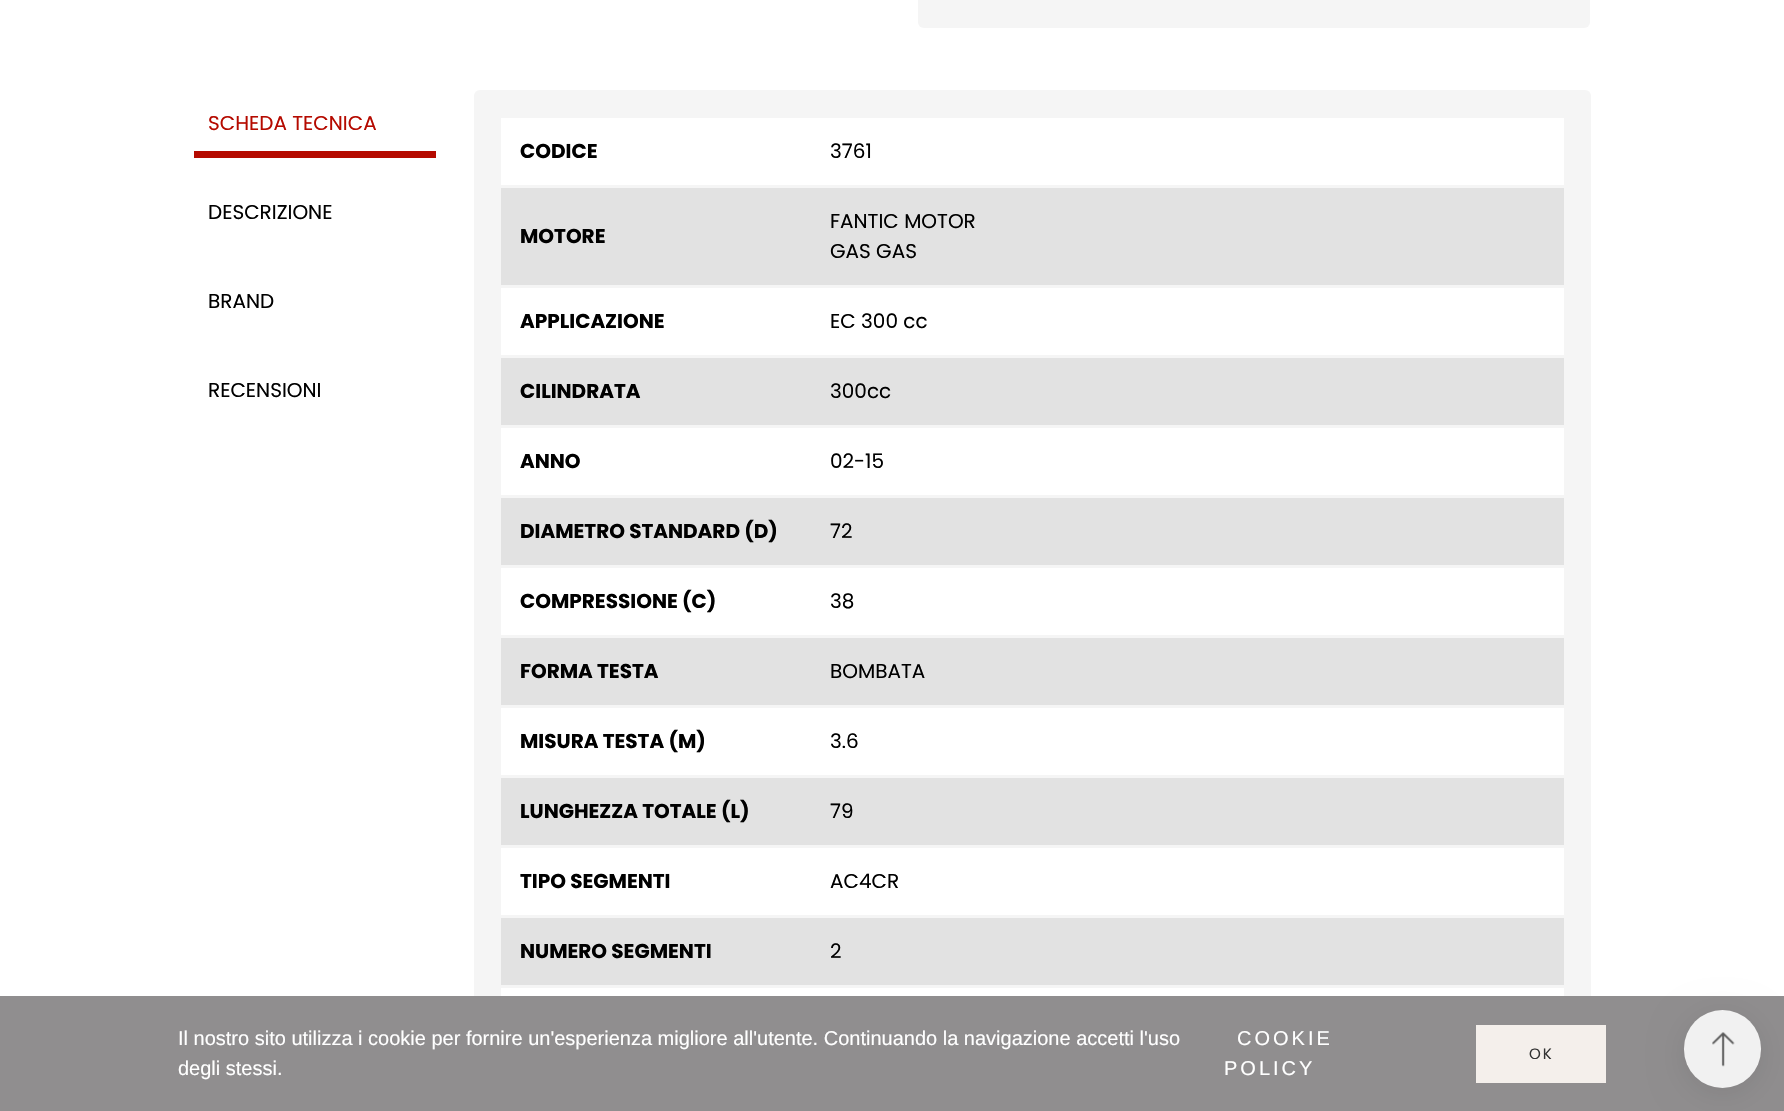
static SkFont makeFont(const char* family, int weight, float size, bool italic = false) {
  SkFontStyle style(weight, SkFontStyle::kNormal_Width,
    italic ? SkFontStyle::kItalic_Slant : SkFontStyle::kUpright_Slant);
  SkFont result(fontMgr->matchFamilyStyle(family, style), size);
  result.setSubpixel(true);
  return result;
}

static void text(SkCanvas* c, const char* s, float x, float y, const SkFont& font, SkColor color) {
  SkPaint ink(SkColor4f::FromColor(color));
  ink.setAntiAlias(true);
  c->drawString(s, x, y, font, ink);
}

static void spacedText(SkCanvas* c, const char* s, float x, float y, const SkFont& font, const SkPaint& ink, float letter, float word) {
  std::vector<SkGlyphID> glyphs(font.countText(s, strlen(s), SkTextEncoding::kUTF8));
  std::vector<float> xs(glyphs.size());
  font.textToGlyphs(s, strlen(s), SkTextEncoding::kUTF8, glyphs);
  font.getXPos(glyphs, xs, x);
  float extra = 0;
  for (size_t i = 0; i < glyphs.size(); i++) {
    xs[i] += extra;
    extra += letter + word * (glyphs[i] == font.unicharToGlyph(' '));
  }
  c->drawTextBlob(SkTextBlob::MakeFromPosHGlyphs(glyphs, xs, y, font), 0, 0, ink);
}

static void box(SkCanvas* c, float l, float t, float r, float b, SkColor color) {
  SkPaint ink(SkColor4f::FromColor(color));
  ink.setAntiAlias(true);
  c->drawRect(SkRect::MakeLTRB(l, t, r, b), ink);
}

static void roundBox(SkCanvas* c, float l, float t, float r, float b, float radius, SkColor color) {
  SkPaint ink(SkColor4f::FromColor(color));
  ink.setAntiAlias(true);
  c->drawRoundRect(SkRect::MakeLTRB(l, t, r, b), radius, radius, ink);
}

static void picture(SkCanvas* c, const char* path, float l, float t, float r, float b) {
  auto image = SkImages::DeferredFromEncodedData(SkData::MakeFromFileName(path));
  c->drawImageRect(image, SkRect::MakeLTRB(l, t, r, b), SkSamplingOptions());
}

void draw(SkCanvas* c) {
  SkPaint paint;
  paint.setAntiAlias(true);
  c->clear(0xffffffff);
  roundBox(c, 918, -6, 1590, 28, 6, 0xfff5f5f5);
  SkFont face1 = makeFont("Poppins", 400, 20);
  text(c, "SCHEDA TECNICA", 208, 130, face1, 0xffb50a00);
  box(c, 194, 151, 436, 158, 0xffb50a00);
  text(c, "DESCRIZIONE", 208, 219, face1, 0xff000000);
  text(c, "BRAND", 208, 308, face1, 0xff000000);
  text(c, "RECENSIONI", 208, 397, face1, 0xff000000);
  roundBox(c, 474, 90, 1591, 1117, 6, 0xfff5f5f5);
  box(c, 501, 118, 1564, 185, 0xffffffff);
  SkFont face2 = makeFont("Poppins", 700, 20);
  text(c, "CODICE", 520, 158, face2, 0xff000000);
  text(c, "3761", 830, 158, face1, 0xff000000);
  box(c, 501, 188, 1564, 285, 0xffe2e2e2);
  text(c, "MOTORE", 520, 243, face2, 0xff000000);
  text(c, "FANTIC MOTOR", 830, 228, face1, 0xff000000);
  text(c, "GAS GAS", 830, 258, face1, 0xff000000);
  box(c, 501, 288, 1564, 355, 0xffffffff);
  text(c, "APPLICAZIONE", 520, 328, face2, 0xff000000);
  text(c, "EC 300 cc", 830, 328, face1, 0xff000000);
  box(c, 501, 358, 1564, 425, 0xffe2e2e2);
  text(c, "CILINDRATA", 520, 398, face2, 0xff000000);
  text(c, "300cc", 830, 398, face1, 0xff000000);
  box(c, 501, 428, 1564, 495, 0xffffffff);
  text(c, "ANNO", 520, 468, face2, 0xff000000);
  text(c, "02-15", 830, 468, face1, 0xff000000);
  box(c, 501, 498, 1564, 565, 0xffe2e2e2);
  text(c, "DIAMETRO STANDARD (D)", 520, 538, face2, 0xff000000);
  text(c, "72", 830, 538, face1, 0xff000000);
  box(c, 501, 568, 1564, 635, 0xffffffff);
  text(c, "COMPRESSIONE (C)", 520, 608, face2, 0xff000000);
  text(c, "38", 830, 608, face1, 0xff000000);
  box(c, 501, 638, 1564, 705, 0xffe2e2e2);
  text(c, "FORMA TESTA", 520, 678, face2, 0xff000000);
  text(c, "BOMBATA", 830, 678, face1, 0xff000000);
  box(c, 501, 708, 1564, 775, 0xffffffff);
  text(c, "MISURA TESTA (M)", 520, 748, face2, 0xff000000);
  text(c, "3.6", 830, 748, face1, 0xff000000);
  box(c, 501, 778, 1564, 845, 0xffe2e2e2);
  text(c, "LUNGHEZZA TOTALE (L)", 520, 818, face2, 0xff000000);
  text(c, "79", 830, 818, face1, 0xff000000);
  box(c, 501, 848, 1564, 915, 0xffffffff);
  text(c, "TIPO SEGMENTI", 520, 888, face2, 0xff000000);
  text(c, "AC4CR", 830, 888, face1, 0xff000000);
  box(c, 501, 918, 1564, 985, 0xffe2e2e2);
  text(c, "NUMERO SEGMENTI", 520, 958, face2, 0xff000000);
  text(c, "2", 830, 958, face1, 0xff000000);
  box(c, 501, 988, 1564, 996, 0xffffffff);
  box(c, 0, 996, 1784, 1111, 0xff908e8f);
  SkFont face3 = makeFont("Liberation Sans", 400, 20);
  text(c, "Il nostro sito utilizza i cookie per fornire un'esperienza migliore all'utente. Continuando la navigazione accetti l'uso", 178, 1045, face3, 0xffffffff);
  text(c, "degli stessi.", 178, 1075, face3, 0xffffffff);
  paint.setColor(0xffffffff);
  spacedText(c, "COOKIE", 1237, 1045, face3, paint, 3, 0);
  spacedText(c, "POLICY", 1224, 1075, face3, paint, 3, 0);
  box(c, 1476, 1025, 1606, 1083, 0xfff4efeb);
  SkFont face4 = makeFont("Poppins", 400, 15);
  paint.setColor(0xff333333);
  spacedText(c, "OK", 1529, 1059, face4, paint, 2, 0);
  paint.setColor(0x17000000);
  paint.setMaskFilter(SkMaskFilter::MakeBlur(kNormal_SkBlurStyle, 17));
  c->drawRoundRect(SkRect::MakeLTRB(1684, 1016, 1761, 1094), 38.5f, 38.5f, paint);
  paint.setMaskFilter(nullptr);
  roundBox(c, 1684, 1010, 1761, 1088, 38.5f, 0xfff1f1f1);
  picture(c, "img_01.png", 1712, 1032, 1735, 1067);
}
